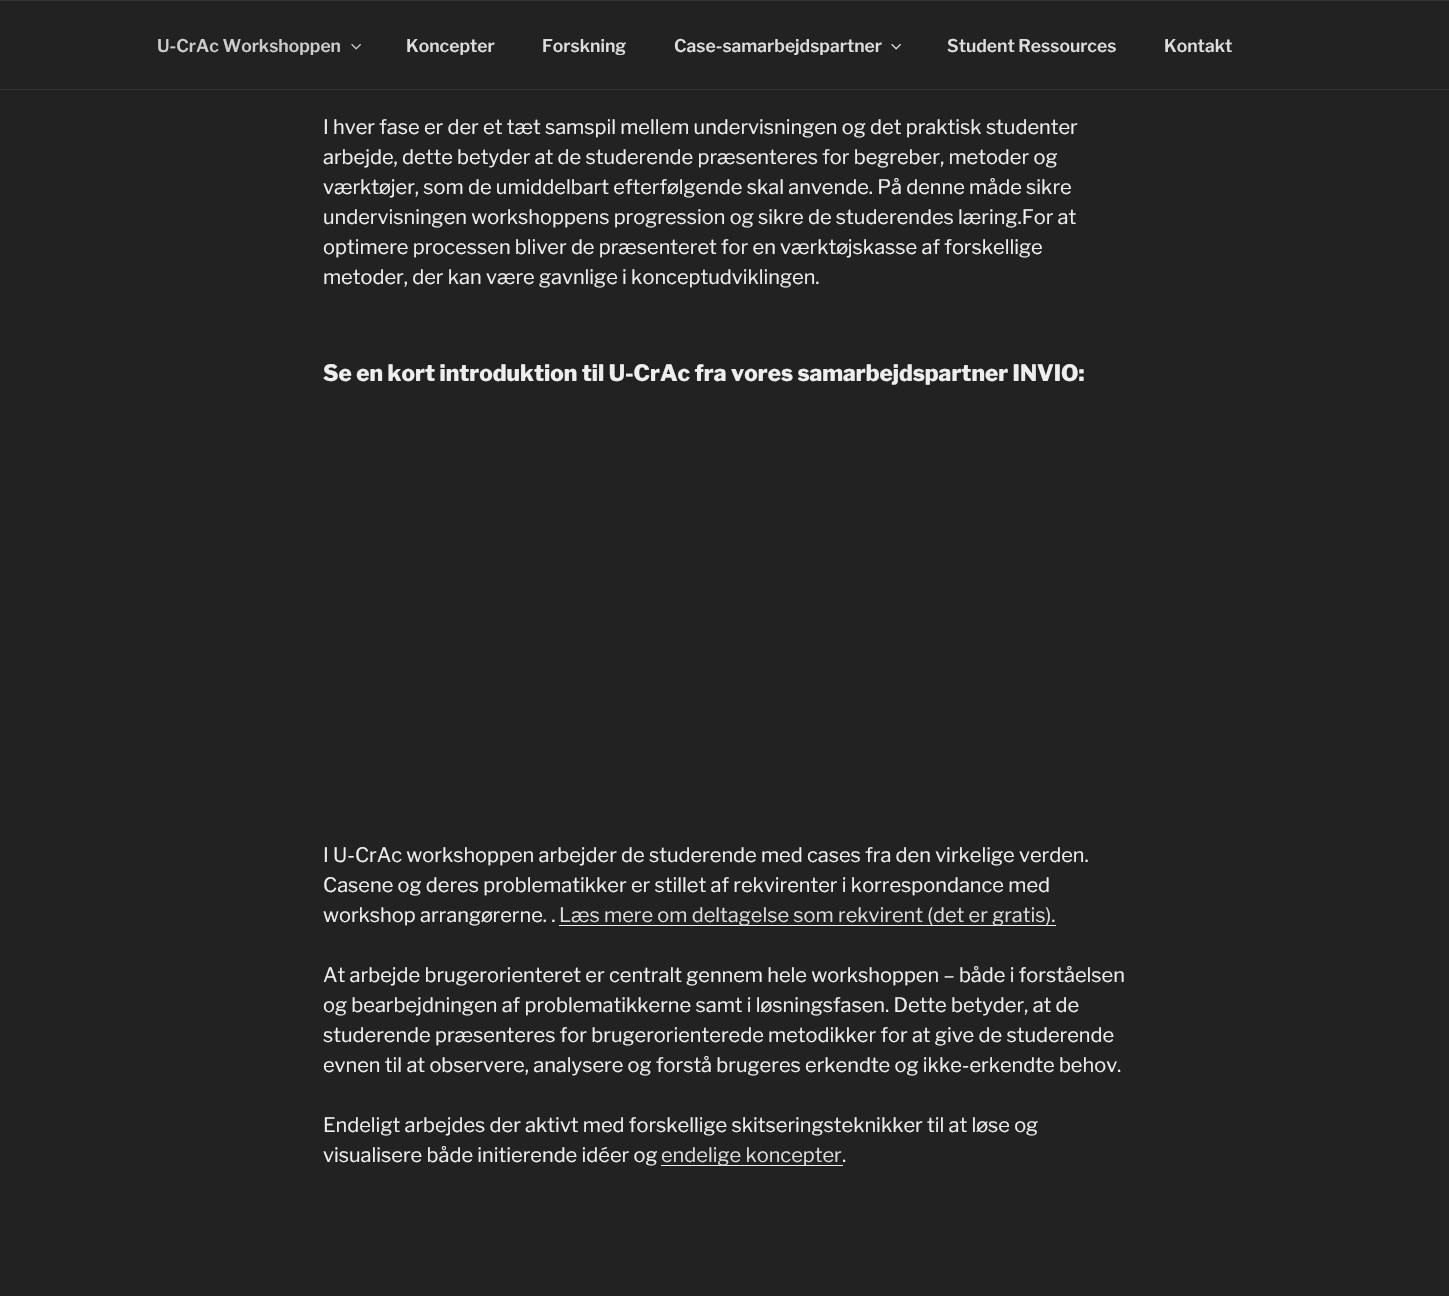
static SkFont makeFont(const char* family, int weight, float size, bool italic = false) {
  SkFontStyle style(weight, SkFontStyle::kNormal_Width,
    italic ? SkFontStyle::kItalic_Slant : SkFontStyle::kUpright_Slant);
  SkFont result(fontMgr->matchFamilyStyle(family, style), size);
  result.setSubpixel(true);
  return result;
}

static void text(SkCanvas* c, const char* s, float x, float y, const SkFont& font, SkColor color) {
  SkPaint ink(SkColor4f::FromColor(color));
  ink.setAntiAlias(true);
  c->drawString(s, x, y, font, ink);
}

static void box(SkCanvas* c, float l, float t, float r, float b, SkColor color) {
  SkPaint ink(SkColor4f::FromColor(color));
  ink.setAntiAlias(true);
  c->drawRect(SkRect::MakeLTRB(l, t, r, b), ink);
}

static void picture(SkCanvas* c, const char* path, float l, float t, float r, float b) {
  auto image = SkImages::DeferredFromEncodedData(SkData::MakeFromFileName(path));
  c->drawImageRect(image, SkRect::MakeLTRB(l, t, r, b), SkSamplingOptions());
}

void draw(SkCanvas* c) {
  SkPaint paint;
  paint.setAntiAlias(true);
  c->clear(0xff222222);
  box(c, 0, 0, 1449, 1, 0xff333333);
  box(c, 0, 89, 1449, 90, 0xff333333);
  SkFont face1 = makeFont("Libre Franklin", 600, 17.5f);
  text(c, "U-CrAc Workshoppen", 157, 52, face1, 0xffcccccc);
  picture(c, "img_01.png", 351, 43, 361, 50);
  text(c, "Koncepter", 406, 52, face1, 0xffdddddd);
  text(c, "Forskning", 542, 52, face1, 0xffdddddd);
  text(c, "Case-samarbejdspartner", 674, 52, face1, 0xffdddddd);
  picture(c, "img_02.png", 891, 43, 901, 50);
  text(c, "Student Ressources", 947, 52, face1, 0xffdddddd);
  text(c, "Kontakt", 1164, 52, face1, 0xffdddddd);
  SkFont face2 = makeFont("Libre Franklin", 400, 20);
  text(c, "I hver fase er der et tæt samspil mellem undervisningen og det praktisk studenter", 323, 134, face2, 0xffeeeeee);
  text(c, "arbejde, dette betyder at de studerende præsenteres for begreber, metoder og", 323, 164, face2, 0xffeeeeee);
  text(c, "værktøjer, som de umiddelbart efterfølgende skal anvende. På denne måde sikre", 323, 194, face2, 0xffeeeeee);
  text(c, "undervisningen workshoppens progression og sikre de studerendes læring.For at", 323, 224, face2, 0xffeeeeee);
  text(c, "optimere processen bliver de præsenteret for en værktøjskasse af forskellige", 323, 254, face2, 0xffeeeeee);
  text(c, "metoder, der kan være gavnlige i konceptudviklingen.", 323, 284, face2, 0xffeeeeee);
  SkFont face3 = makeFont("Libre Franklin", 800, 22.5f);
  text(c, "Se en kort introduktion til U-CrAc fra vores samarbejdspartner INVIO:", 323, 381, face3, 0xffeeeeee);
  text(c, "I U-CrAc workshoppen arbejder de studerende med cases fra den virkelige verden.", 323, 862, face2, 0xffeeeeee);
  text(c, "Casene og deres problematikker er stillet af rekvirenter i korrespondance med", 323, 892, face2, 0xffeeeeee);
  text(c, "workshop arrangørerne. .", 323, 922, face2, 0xffeeeeee);
  box(c, 559, 925, 1056, 926, 0xfff0f0f0);
  text(c, "Læs mere om deltagelse som rekvirent (det er gratis).", 559, 922, face2, 0xffdddddd);
  text(c, "At arbejde brugerorienteret er centralt gennem hele workshoppen – både i forståelsen", 323, 982, face2, 0xffeeeeee);
  text(c, "og bearbejdningen af problematikkerne samt i løsningsfasen. Dette betyder, at de", 323, 1012, face2, 0xffeeeeee);
  text(c, "studerende præsenteres for brugerorienterede metodikker for at give de studerende", 323, 1042, face2, 0xffeeeeee);
  text(c, "evnen til at observere, analysere og forstå brugeres erkendte og ikke-erkendte behov.", 323, 1072, face2, 0xffeeeeee);
  text(c, "Endeligt arbejdes der aktivt med forskellige skitseringsteknikker til at løse og", 323, 1132, face2, 0xffeeeeee);
  text(c, "visualisere både initierende idéer og", 323, 1162, face2, 0xffeeeeee);
  box(c, 661, 1165, 843, 1166, 0xfff0f0f0);
  text(c, "endelige koncepter", 661, 1162, face2, 0xffdddddd);
  text(c, ".", 842, 1162, face2, 0xffeeeeee);
}
